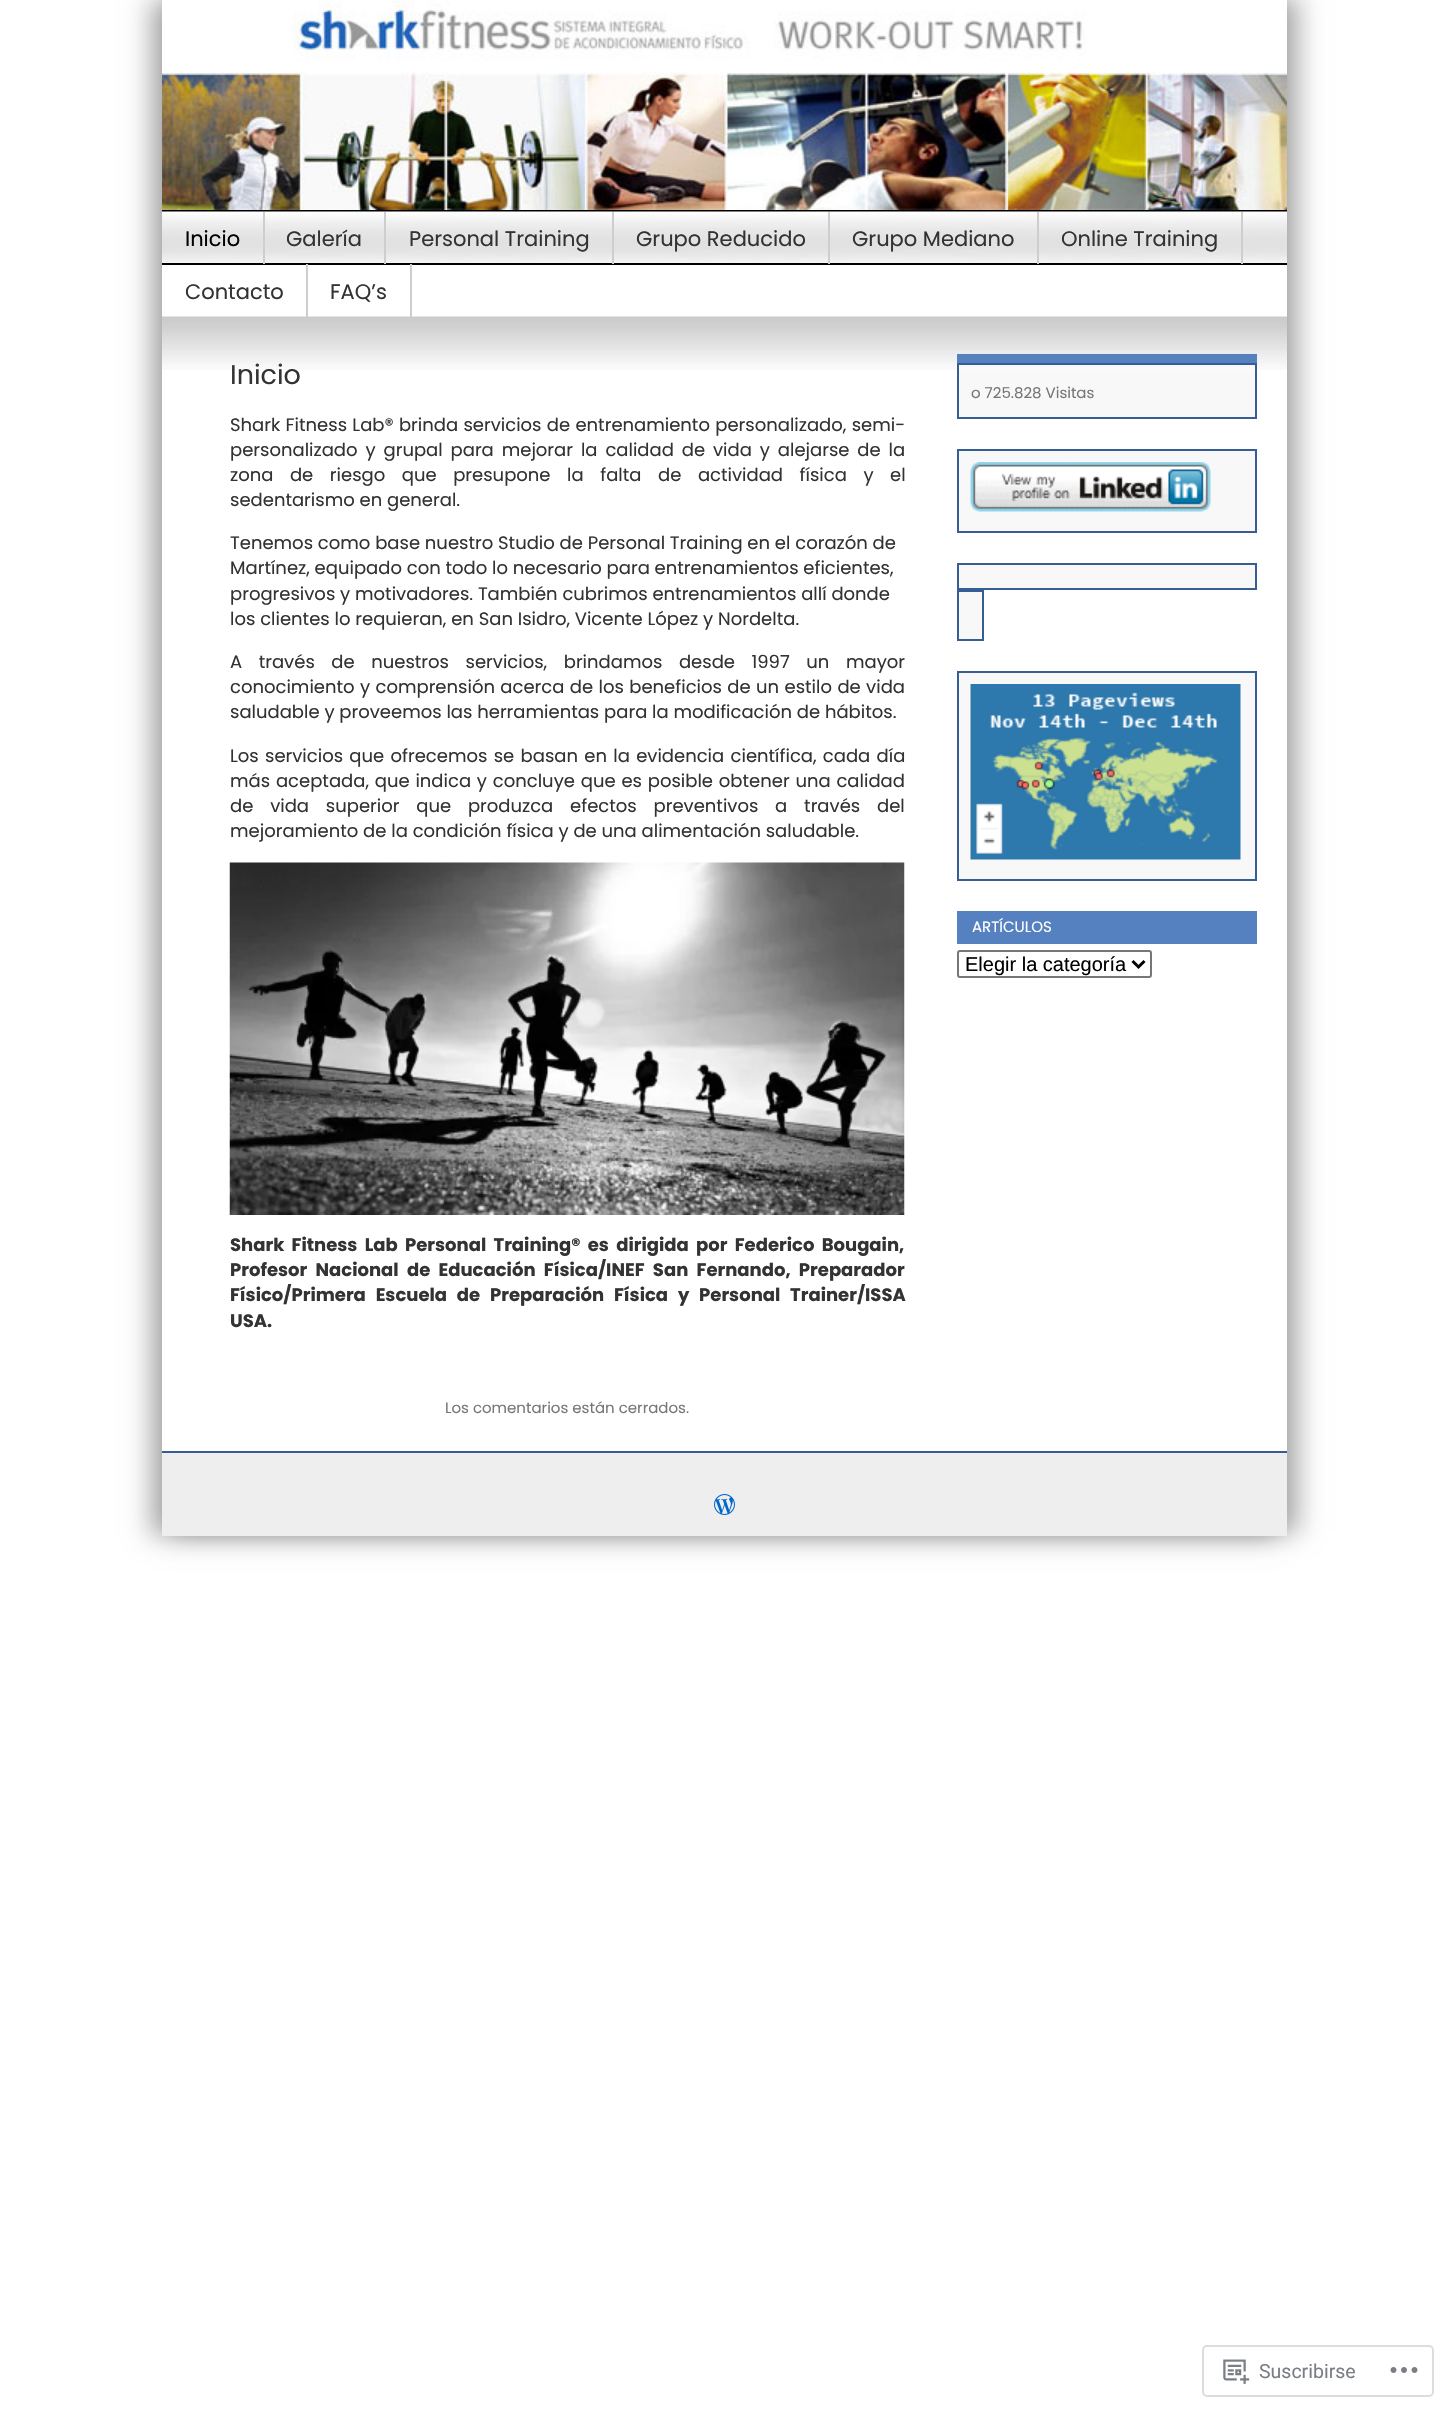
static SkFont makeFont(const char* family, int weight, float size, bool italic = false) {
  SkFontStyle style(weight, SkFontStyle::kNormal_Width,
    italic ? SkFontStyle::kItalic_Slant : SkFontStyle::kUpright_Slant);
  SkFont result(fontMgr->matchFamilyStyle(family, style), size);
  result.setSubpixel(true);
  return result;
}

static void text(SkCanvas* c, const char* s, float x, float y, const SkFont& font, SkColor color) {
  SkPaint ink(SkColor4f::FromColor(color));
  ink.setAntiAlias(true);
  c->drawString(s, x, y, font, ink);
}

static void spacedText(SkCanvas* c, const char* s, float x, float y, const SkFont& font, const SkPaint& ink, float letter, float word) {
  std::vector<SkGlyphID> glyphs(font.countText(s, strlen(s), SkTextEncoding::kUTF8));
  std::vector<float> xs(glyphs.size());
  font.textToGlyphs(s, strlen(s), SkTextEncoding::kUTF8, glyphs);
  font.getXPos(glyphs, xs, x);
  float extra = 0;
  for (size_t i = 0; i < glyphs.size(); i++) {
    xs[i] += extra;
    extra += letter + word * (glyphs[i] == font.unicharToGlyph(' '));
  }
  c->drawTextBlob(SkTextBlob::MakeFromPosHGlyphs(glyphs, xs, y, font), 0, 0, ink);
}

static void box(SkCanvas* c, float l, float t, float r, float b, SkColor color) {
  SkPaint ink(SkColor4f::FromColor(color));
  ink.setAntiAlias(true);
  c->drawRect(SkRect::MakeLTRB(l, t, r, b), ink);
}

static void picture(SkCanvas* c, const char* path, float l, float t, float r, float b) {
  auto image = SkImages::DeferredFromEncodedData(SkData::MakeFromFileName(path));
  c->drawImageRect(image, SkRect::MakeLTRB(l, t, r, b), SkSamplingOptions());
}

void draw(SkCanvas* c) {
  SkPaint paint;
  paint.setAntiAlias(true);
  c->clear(0xffffffff);
  c->save();
  c->clipPath(SkPathBuilder(SkPathFillType::kEvenOdd).moveTo(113, 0).lineTo(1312, 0).lineTo(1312, 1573).lineTo(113, 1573).close().moveTo(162, 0).lineTo(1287, 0).lineTo(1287, 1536).lineTo(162, 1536).close().detach(), true);
  paint.setColor(0x4d000000);
  paint.setMaskFilter(SkMaskFilter::MakeBlur(kNormal_SkBlurStyle, 12));
  c->drawRect(SkRect::MakeLTRB(150, 0, 1275, 1536), paint);
  paint.setMaskFilter(nullptr);
  c->restore();
  c->save();
  c->clipPath(SkPathBuilder(SkPathFillType::kEvenOdd).moveTo(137, 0).lineTo(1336, 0).lineTo(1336, 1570).lineTo(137, 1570).close().moveTo(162, 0).lineTo(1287, 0).lineTo(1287, 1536).lineTo(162, 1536).close().detach(), true);
  paint.setMaskFilter(SkMaskFilter::MakeBlur(kNormal_SkBlurStyle, 12));
  c->drawRect(SkRect::MakeLTRB(174, -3, 1299, 1533), paint);
  paint.setMaskFilter(nullptr);
  c->restore();
  box(c, 162, 210, 1287, 212, 0xff000000);
  picture(c, "img_01.png", 162, 0, 1287, 210);
  picture(c, "img_02.png", 162, 211, 1287, 263);
  box(c, 162, 263, 1287, 265, 0xff000000);
  box(c, 263, 212, 265, 264, 0xffcecece);
  SkFont face1 = makeFont("Poppins", 400, 21);
  text(c, "Inicio", 185, 246, face1, 0xff000000);
  box(c, 384, 212, 386, 264, 0xffcecece);
  text(c, "Galería", 286, 246, face1, 0xff333333);
  box(c, 612, 212, 614, 264, 0xffcecece);
  text(c, "Personal Training", 409, 246, face1, 0xff333333);
  box(c, 828, 212, 830, 264, 0xffcecece);
  text(c, "Grupo Reducido", 636, 246, face1, 0xff333333);
  box(c, 1037, 212, 1039, 264, 0xffcecece);
  text(c, "Grupo Mediano", 852, 246, face1, 0xff333333);
  box(c, 1241, 212, 1243, 264, 0xffcecece);
  text(c, "Online Training", 1061, 246, face1, 0xff333333);
  picture(c, "img_03.png", 162, 316, 1287, 370);
  box(c, 306, 264, 308, 317, 0xffcecece);
  text(c, "Contacto", 185, 299, face1, 0xff333333);
  box(c, 410, 264, 412, 317, 0xffcecece);
  text(c, "FAQ’s", 330, 299, face1, 0xff333333);
  SkFont face2 = makeFont("Poppins", 400, 27);
  text(c, "Inicio", 230, 384, face2, 0xff333333);
  SkFont face3 = makeFont("Poppins", 400, 18);
  paint.setColor(0xff333333);
  spacedText(c, "Shark Fitness Lab® brinda servicios de entrenamiento personalizado, semi-", 230, 431, face3, paint, 0, 0.5f);
  spacedText(c, "personalizado y grupal para mejorar la calidad de vida y alejarse de la", 230, 456, face3, paint, 0, 3.1f);
  spacedText(c, "zona de riesgo que presupone la falta de actividad física y el", 230, 481, face3, paint, 0, 11.75f);
  text(c, "sedentarismo en general.", 230, 506, face3, 0xff333333);
  text(c, "Tenemos como base nuestro Studio de Personal Training en el corazón de", 230, 549, face3, 0xff333333);
  text(c, "Martínez, equipado con todo lo necesario para entrenamientos eficientes,", 230, 574, face3, 0xff333333);
  text(c, "progresivos y motivadores. También cubrimos entrenamientos allí donde", 230, 600, face3, 0xff333333);
  text(c, "los clientes lo requieran, en San Isidro, Vicente López y Nordelta.", 230, 625, face3, 0xff333333);
  spacedText(c, "A través de nuestros servicios, brindamos desde 1997 un mayor", 230, 668, face3, paint, 0, 11.75f);
  spacedText(c, "conocimiento y comprensión acerca de los beneficios de un estilo de vida", 230, 693, face3, paint, 0, 0.6f);
  text(c, "saludable y proveemos las herramientas para la modificación de hábitos.", 230, 718, face3, 0xff333333);
  spacedText(c, "Los servicios que ofrecemos se basan en la evidencia científica, cada día", 230, 762, face3, paint, 0, 1.5f);
  spacedText(c, "más aceptada, que indica y concluye que es posible obtener una calidad", 230, 787, face3, paint, 0, 1);
  spacedText(c, "de vida superior que produzca efectos preventivos a través del", 230, 812, face3, paint, 0, 12);
  text(c, "mejoramiento de la condición física y de una alimentación saludable.", 230, 837, face3, 0xff333333);
  picture(c, "img_04.png", 229, 862, 905, 1215);
  SkFont face4 = makeFont("Poppins", 700, 18);
  spacedText(c, "Shark Fitness Lab Personal Training® es dirigida por Federico Bougain,", 230, 1251, face4, paint, 0, 3.5f);
  spacedText(c, "Profesor Nacional de Educación Física/INEF San Fernando, Preparador", 230, 1276, face4, paint, 0, 4.5f);
  spacedText(c, "Físico/Primera Escuela de Preparación Física y Personal Trainer/ISSA", 230, 1301, face4, paint, 0, 6);
  text(c, "USA.", 230, 1327, face4, 0xff333333);
  SkFont face5 = makeFont("Poppins", 400, 15);
  text(c, "Los comentarios están cerrados.", 445, 1413, face5, 0xff777777);
  box(c, 957, 354, 1257, 363, 0xff5581c0);
  box(c, 959, 370, 1255, 417, 0xfff8f8f8);
  paint.setStyle(SkPaint::kStroke_Style);
  paint.setStrokeWidth(2);
  paint.setColor(0xff375e94);
  c->drawRect(SkRect::MakeLTRB(958, 364, 1256, 418), paint);
  text(c, "o 725.828 Visitas", 971, 398, face5, 0xff777777);
  paint.setStyle(SkPaint::kFill_Style);
  paint.setColor(0xfff8f8f8);
  c->drawRect(SkRect::MakeLTRB(958, 450, 1256, 532), paint);
  paint.setStyle(SkPaint::kStroke_Style);
  paint.setColor(0xff375e94);
  c->drawRect(SkRect::MakeLTRB(958, 450, 1256, 532), paint);
  picture(c, "img_05.png", 970, 462, 1211, 512);
  paint.setStyle(SkPaint::kFill_Style);
  paint.setColor(0xfff8f8f8);
  c->drawRect(SkRect::MakeLTRB(958, 564, 1256, 589), paint);
  paint.setStyle(SkPaint::kStroke_Style);
  paint.setColor(0xff375e94);
  c->drawRect(SkRect::MakeLTRB(958, 564, 1256, 589), paint);
  paint.setStyle(SkPaint::kFill_Style);
  paint.setColor(0xfff8f8f8);
  c->drawRect(SkRect::MakeLTRB(958, 591, 983, 640), paint);
  paint.setStyle(SkPaint::kStroke_Style);
  paint.setColor(0xff375e94);
  c->drawRect(SkRect::MakeLTRB(958, 591, 983, 640), paint);
  paint.setStyle(SkPaint::kFill_Style);
  paint.setColor(0xfff8f8f8);
  c->drawRect(SkRect::MakeLTRB(958, 672, 1256, 880), paint);
  paint.setStyle(SkPaint::kStroke_Style);
  paint.setColor(0xff375e94);
  c->drawRect(SkRect::MakeLTRB(958, 672, 1256, 880), paint);
  picture(c, "img_06.png", 970, 684, 1241, 860);
  box(c, 957, 911, 1257, 944, 0xff5581c0);
  text(c, "ARTÍCULOS", 972, 932, face5, 0xffffffff);
  paint.setColor(0xff767676);
  c->drawRoundRect(SkRect::MakeLTRB(958, 951, 1151, 977), 2, 2, paint);
  paint.setStrokeWidth(3);
  paint.setColor(0xff000000);
  c->drawPath(SkPathBuilder().moveTo(1132.5f, 961).lineTo(1138.5f, 967).lineTo(1144.5f, 961).detach(), paint);
  SkFont face6 = makeFont("Liberation Sans", 400, 20);
  text(c, "Elegir la categoría", 965, 971, face6, 0xff000000);
  box(c, 162, 1453, 1287, 1536, 0xffeeeeee);
  box(c, 162, 1451, 1287, 1453, 0xff375e94);
  picture(c, "img_07.png", 714, 1494, 735, 1515);
  paint.setStrokeWidth(2);
  paint.setColor(0xffdddddf);
  c->drawRoundRect(SkRect::MakeLTRB(1203, 2346, 1433, 2396), 4, 4, paint);
  picture(c, "img_08.png", 1223, 2359, 1250, 2384);
  SkFont face7 = makeFont("Roboto", 400, 19.5f);
  text(c, "Suscribirse", 1259, 2378, face7, 0xff7b7f85);
  picture(c, "img_09.png", 1390, 2367, 1418, 2373);
}
